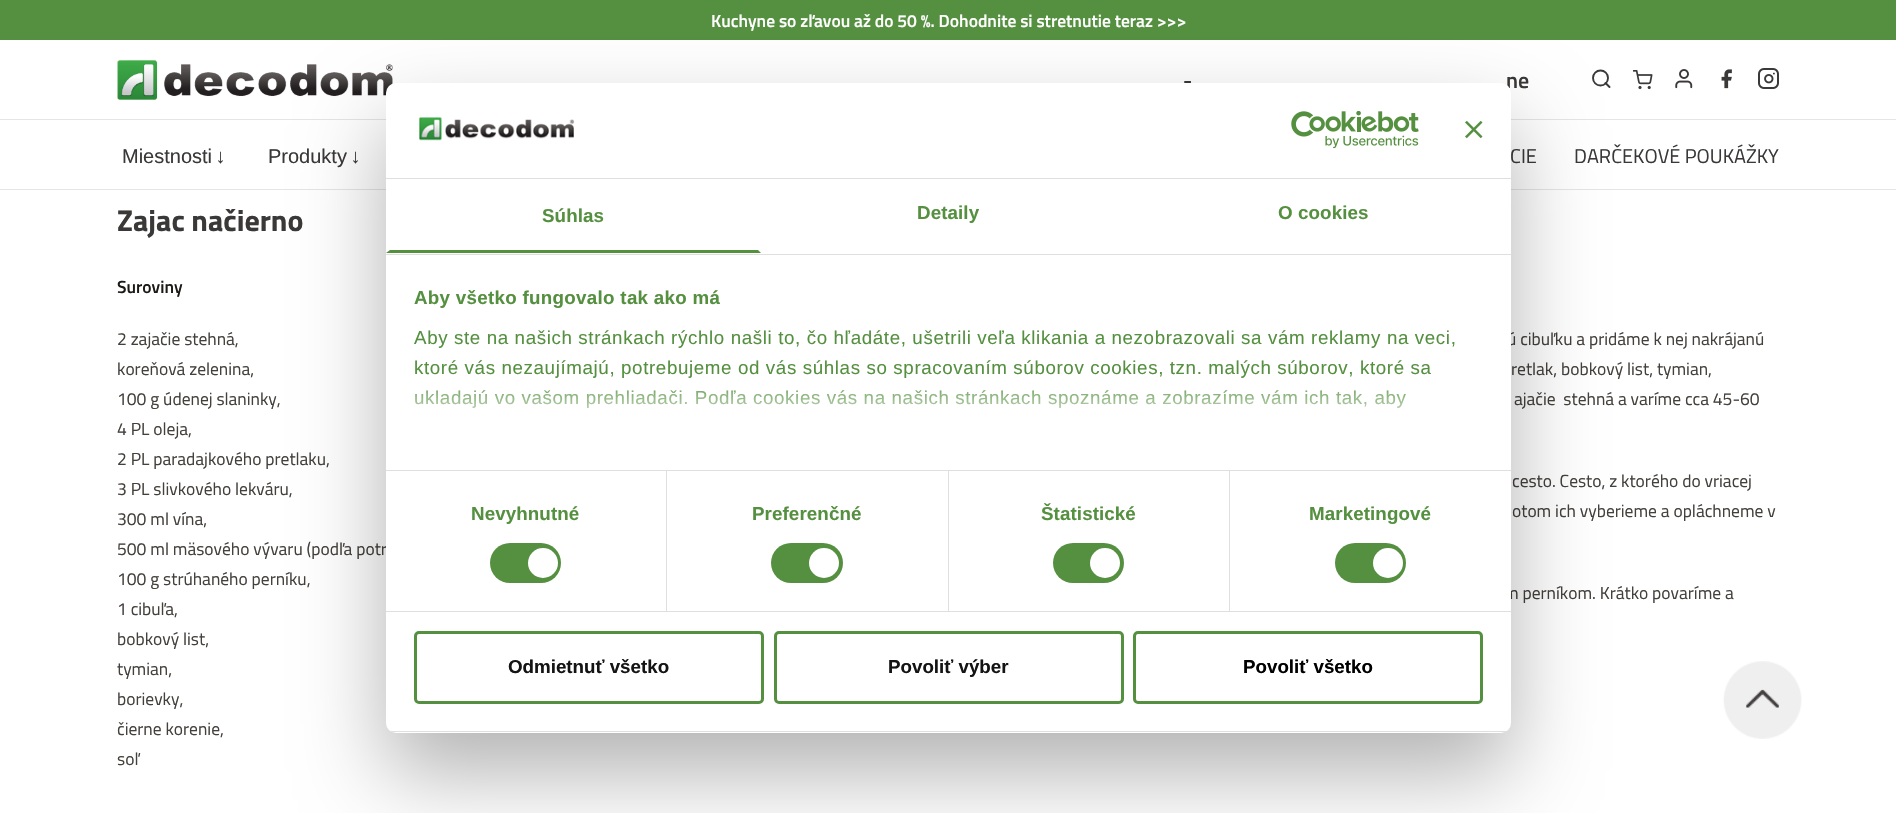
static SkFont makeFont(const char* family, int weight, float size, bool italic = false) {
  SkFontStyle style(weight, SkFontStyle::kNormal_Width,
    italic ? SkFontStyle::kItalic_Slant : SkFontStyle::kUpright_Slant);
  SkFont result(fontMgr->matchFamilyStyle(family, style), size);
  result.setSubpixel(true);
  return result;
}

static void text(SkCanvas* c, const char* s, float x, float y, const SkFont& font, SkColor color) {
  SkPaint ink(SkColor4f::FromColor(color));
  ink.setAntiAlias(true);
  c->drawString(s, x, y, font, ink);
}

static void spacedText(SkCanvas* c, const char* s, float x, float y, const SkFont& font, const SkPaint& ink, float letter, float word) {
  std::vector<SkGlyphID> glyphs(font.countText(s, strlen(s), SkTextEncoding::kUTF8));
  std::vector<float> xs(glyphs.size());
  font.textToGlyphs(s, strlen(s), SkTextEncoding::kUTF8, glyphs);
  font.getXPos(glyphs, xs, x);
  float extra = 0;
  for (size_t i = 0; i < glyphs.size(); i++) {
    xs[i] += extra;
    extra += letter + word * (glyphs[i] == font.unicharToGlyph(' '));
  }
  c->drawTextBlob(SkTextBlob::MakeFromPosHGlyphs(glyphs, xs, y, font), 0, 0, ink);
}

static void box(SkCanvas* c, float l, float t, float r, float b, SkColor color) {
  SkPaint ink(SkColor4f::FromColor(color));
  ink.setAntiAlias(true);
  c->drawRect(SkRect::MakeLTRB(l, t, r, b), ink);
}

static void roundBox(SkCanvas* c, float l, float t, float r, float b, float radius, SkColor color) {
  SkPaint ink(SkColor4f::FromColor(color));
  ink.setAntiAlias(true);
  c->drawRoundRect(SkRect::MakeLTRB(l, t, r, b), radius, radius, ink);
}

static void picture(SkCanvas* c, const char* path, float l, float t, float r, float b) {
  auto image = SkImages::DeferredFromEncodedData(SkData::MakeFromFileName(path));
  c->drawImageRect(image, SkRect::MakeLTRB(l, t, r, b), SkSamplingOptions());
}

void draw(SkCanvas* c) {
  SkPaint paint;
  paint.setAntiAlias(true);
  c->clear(0xffffffff);
  box(c, 0, 119, 1896, 120, 0xffe7e5e4);
  box(c, 0, 0, 1896, 40, 0xff559040);
  SkFont face1 = makeFont("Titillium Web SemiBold", 600, 17.5f);
  text(c, "Kuchyne so zľavou až do 50 %. Dohodnite si stretnutie teraz >>>", 711, 27, face1, 0xffffffff);
  picture(c, "img_01.png", 117, 60, 393, 100);
  SkFont face2 = makeFont("Titillium Web SemiBold", 600, 22);
  text(c, "-", 1183, 88, face2, 0xff3b3838);
  text(c, "ne", 1506, 88, face2, 0xff3b3838);
  paint.setStyle(SkPaint::kStroke_Style);
  paint.setStrokeWidth(1.9f);
  paint.setColor(0xff3b3838);
  c->drawCircle(1600.5f, 78, 7.5f, paint);
  paint.setStrokeCap(SkPaint::kRound_Cap);
  paint.setStrokeJoin(SkPaint::kRound_Join);
  c->drawPath(SkPathBuilder().moveTo(1609.5f, 87).lineTo(1605.5f, 83).detach(), paint);
  picture(c, "img_02.png", 1633, 70, 1653, 90);
  picture(c, "img_03.png", 1675, 69, 1693, 89);
  picture(c, "img_04.png", 1721, 69, 1732, 89);
  picture(c, "img_05.png", 1758, 68, 1779, 89);
  box(c, 0, 189, 1896, 190, 0xffe7e5e4);
  SkFont face3 = makeFont("Liberation Sans", 400, 20);
  paint.setStyle(SkPaint::kFill_Style);
  spacedText(c, "Miestnosti ↓", 122, 163, face3, paint, 0, -2);
  spacedText(c, "Produkty ↓", 268, 163, face3, paint, 0, -2);
  SkFont face4 = makeFont("Titillium Web", 400, 20);
  text(c, "CIE", 1510, 163, face4, 0xff3b3838);
  text(c, "DARČEKOVÉ POUKÁŽKY", 1574, 163, face4, 0xff3b3838);
  SkFont face5 = makeFont("Titillium Web", 700, 30);
  text(c, "Zajac načierno", 117, 231, face5, 0xff3b3838);
  text(c, "Suroviny", 117, 293, face1, 0xff1c1917);
  SkFont face6 = makeFont("Titillium Web", 400, 17.5f);
  text(c, "2 zajačie stehná,", 117, 345, face6, 0xff44403c);
  text(c, "koreňová zelenina,", 117, 375, face6, 0xff44403c);
  text(c, "100 g údenej slaninky,", 117, 405, face6, 0xff44403c);
  text(c, "4 PL oleja,", 117, 435, face6, 0xff44403c);
  text(c, "2 PL paradajkového pretlaku,", 117, 465, face6, 0xff44403c);
  text(c, "3 PL slivkového lekváru,", 117, 495, face6, 0xff44403c);
  text(c, "300 ml vína,", 117, 525, face6, 0xff44403c);
  text(c, "500 ml mäsového vývaru (podľa potr", 117, 555, face6, 0xff44403c);
  text(c, "100 g strúhaného perníku,", 117, 585, face6, 0xff44403c);
  text(c, "1 cibuľa,", 117, 615, face6, 0xff44403c);
  text(c, "bobkový list,", 117, 645, face6, 0xff44403c);
  text(c, "tymian,", 117, 675, face6, 0xff44403c);
  text(c, "borievky,", 117, 705, face6, 0xff44403c);
  text(c, "čierne korenie,", 117, 735, face6, 0xff44403c);
  text(c, "soľ", 117, 765, face6, 0xff44403c);
  text(c, "ú cibuľku a pridáme k nej nakrájanú", 1507, 345, face6, 0xff44403c);
  text(c, "retlak, bobkový list, tymian,", 1511, 375, face6, 0xff44403c);
  text(c, "ajačie  stehná a varíme cca 45-60", 1514, 405, face6, 0xff44403c);
  text(c, "cesto. Cesto, z ktorého do vriacej", 1512, 487, face6, 0xff44403c);
  text(c, "otom ich vyberieme a opláchneme v", 1512, 517, face6, 0xff44403c);
  text(c, "m perníkom. Krátko povaríme a", 1504, 599, face6, 0xff44403c);
  picture(c, "img_06.png", 1723, 661, 1802, 739);
  paint.setColor(0x4d000000);
  paint.setMaskFilter(SkMaskFilter::MakeBlur(kNormal_SkBlurStyle, 42.5f));
  c->drawRoundRect(SkRect::MakeLTRB(386, 123, 1511, 773), 10, 10, paint);
  paint.setMaskFilter(nullptr);
  roundBox(c, 386, 83, 1511, 733, 10, 0xffffffff);
  box(c, 386, 178, 1511, 179, 0xffdfdfdf);
  picture(c, "img_07.png", 419, 117, 575, 141);
  picture(c, "img_08.png", 1291, 111, 1419, 149);
  picture(c, "img_09.png", 1465, 121, 1483, 139);
  box(c, 386, 254, 1511, 255, 0xffdfdfdf);
  paint.setColor(0xff559040);
  c->drawPath(SkPathBuilder().moveTo(761, 253).lineTo(386, 253).lineTo(390, 250).lineTo(758, 250).close().detach(), paint);
  SkFont face7 = makeFont("Liberation Sans", 700, 18.75f);
  spacedText(c, "Súhlas", 542, 222, face7, paint, 0.1f, 0);
  spacedText(c, "Detaily", 917, 219, face7, paint, 0.1f, 0);
  spacedText(c, "O cookies", 1278, 219, face7, paint, 0.1f, 0);
  box(c, 386, 470, 1511, 471, 0xffdfdfdf);
  spacedText(c, "Aby všetko fungovalo tak ako má", 414, 304, face7, paint, 0.3f, 0);
  SkFont face8 = makeFont("Liberation Sans", 400, 18.75f);
  spacedText(c, "Aby ste na našich stránkach rýchlo našli to, čo hľadáte, ušetrili veľa klikania a nezobrazovali sa vám reklamy na veci,", 414, 344, face8, paint, 0.62f, 0);
  spacedText(c, "ktoré vás nezaujímajú, potrebujeme od vás súhlas so spracovaním súborov cookies, tzn. malých súborov, ktoré sa", 414, 374, face8, paint, 0.62f, 0);
  spacedText(c, "ukladajú vo vašom prehliadači. Podľa cookies vás na našich stránkach spoznáme a zobrazíme vám ich tak, aby", 414, 404, face8, paint, 0.62f, 0);
  {
    const SkColor colors[] = {0xffffffff, 0xccffffff, 0x00ffffff};
    const float stops[] = {0, 0.5f, 1};
    const SkPoint ends[] = {{936, 470}, {936, 376}};
    paint.setShader(SkGradientShader::MakeLinear(ends, colors, stops, 3, SkTileMode::kClamp));
    paint.setAlpha(255);
  }
  c->drawRect(SkRect::MakeLTRB(415, 377, 1406, 408), paint);
  box(c, 386, 611, 1511, 612, 0xffdfdfdf);
  box(c, 666, 471, 667, 611, 0xffdfdfdf);
  paint.setShader(nullptr);
  paint.setColor(0xff559040);
  spacedText(c, "Nevyhnutné", 471, 520, face7, paint, 0.1f, 0);
  roundBox(c, 490, 543, 561, 583, 20, 0xff559040);
  paint.setColor(0xffffffff);
  c->drawCircle(543, 563, 15, paint);
  box(c, 948, 471, 949, 611, 0xffdfdfdf);
  paint.setColor(0xff559040);
  spacedText(c, "Preferenčné", 752, 520, face7, paint, 0.1f, 0);
  roundBox(c, 771, 543, 843, 583, 20, 0xff559040);
  paint.setColor(0xffffffff);
  c->drawCircle(824, 563, 15, paint);
  box(c, 1229, 471, 1230, 611, 0xffdfdfdf);
  paint.setColor(0xff559040);
  spacedText(c, "Štatistické", 1041, 520, face7, paint, 0.1f, 0);
  roundBox(c, 1053, 543, 1124, 583, 20, 0xff559040);
  paint.setColor(0xffffffff);
  c->drawCircle(1105, 563, 15, paint);
  paint.setColor(0xff559040);
  spacedText(c, "Marketingové", 1309, 520, face7, paint, 0.1f, 0);
  roundBox(c, 1335, 543, 1406, 583, 20, 0xff559040);
  paint.setColor(0xffffffff);
  c->drawCircle(1388, 563, 15, paint);
  c->save();
  c->clipPath(SkPathBuilder().moveTo(396, 83).lineTo(1501, 83).cubicTo(1506.5f, 83, 1511, 87.5f, 1511, 93).lineTo(1511, 723).cubicTo(1511, 728.5f, 1506.5f, 733, 1501, 733).lineTo(396, 733).cubicTo(390.5f, 733, 386, 728.5f, 386, 723).lineTo(386, 93).cubicTo(386, 87.5f, 390.5f, 83, 396, 83).close().detach(), true);
  box(c, 386, 731, 1511, 732, 0xffdfdfdf);
  c->restore();
  paint.setStyle(SkPaint::kStroke_Style);
  paint.setStrokeWidth(3);
  paint.setStrokeCap(SkPaint::kButt_Cap);
  paint.setStrokeJoin(SkPaint::kMiter_Join);
  paint.setColor(0xff559040);
  c->drawRoundRect(SkRect::MakeLTRB(415.5f, 632.5f, 762.5f, 702.5f), 3.5f, 3.5f, paint);
  text(c, "Odmietnuť všetko", 508, 673, face7, 0xff141414);
  c->drawRoundRect(SkRect::MakeLTRB(775.5f, 632.5f, 1122.5f, 702.5f), 3.5f, 3.5f, paint);
  text(c, "Povoliť výber", 888, 673, face7, 0xff141414);
  c->drawRoundRect(SkRect::MakeLTRB(1134.5f, 632.5f, 1481.5f, 702.5f), 3.5f, 3.5f, paint);
  text(c, "Povoliť všetko", 1243, 673, face7, 0xff000000);
}
